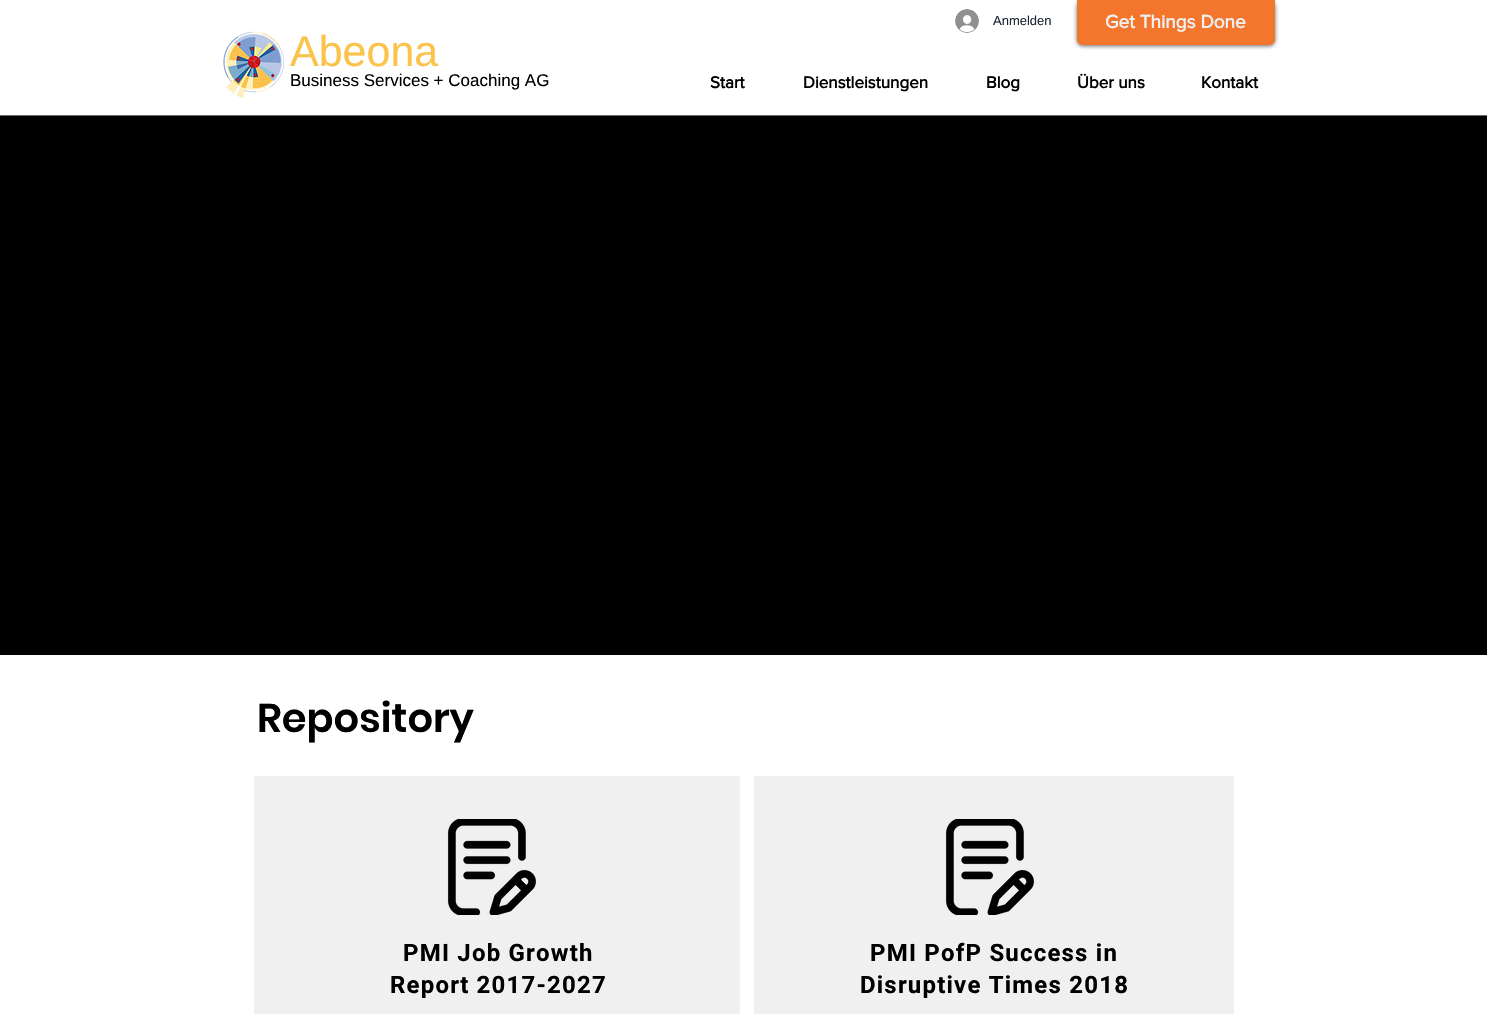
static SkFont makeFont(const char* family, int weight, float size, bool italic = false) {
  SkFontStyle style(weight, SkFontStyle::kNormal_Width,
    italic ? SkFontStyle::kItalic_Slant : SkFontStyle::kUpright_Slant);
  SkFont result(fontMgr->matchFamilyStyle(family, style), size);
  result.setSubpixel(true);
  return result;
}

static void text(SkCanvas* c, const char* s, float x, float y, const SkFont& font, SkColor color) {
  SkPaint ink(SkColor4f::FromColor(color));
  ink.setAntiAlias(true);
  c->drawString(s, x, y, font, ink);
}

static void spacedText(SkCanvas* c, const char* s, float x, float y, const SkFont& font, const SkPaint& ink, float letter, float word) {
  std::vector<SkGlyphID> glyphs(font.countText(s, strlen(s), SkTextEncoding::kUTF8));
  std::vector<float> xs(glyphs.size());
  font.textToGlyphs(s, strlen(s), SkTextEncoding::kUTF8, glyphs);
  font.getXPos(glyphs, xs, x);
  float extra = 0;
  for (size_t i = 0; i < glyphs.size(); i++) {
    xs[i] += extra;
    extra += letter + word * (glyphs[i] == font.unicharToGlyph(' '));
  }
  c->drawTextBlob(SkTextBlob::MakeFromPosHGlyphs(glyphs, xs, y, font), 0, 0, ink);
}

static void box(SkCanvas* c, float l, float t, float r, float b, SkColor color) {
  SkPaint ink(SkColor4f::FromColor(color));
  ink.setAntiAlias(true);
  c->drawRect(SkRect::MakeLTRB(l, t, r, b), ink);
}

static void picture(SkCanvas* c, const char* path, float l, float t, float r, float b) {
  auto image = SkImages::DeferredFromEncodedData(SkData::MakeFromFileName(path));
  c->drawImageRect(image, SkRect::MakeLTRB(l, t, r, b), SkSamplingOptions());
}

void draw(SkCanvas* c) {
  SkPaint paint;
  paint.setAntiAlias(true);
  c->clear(0xffffffff);
  picture(c, "img_01.png", 955, 9, 979, 33);
  SkFont face1 = makeFont("Liberation Sans", 400, 13);
  text(c, "Anmelden", 993, 25, face1, 0xff1f2735);
  paint.setColor(0x99000000);
  paint.setMaskFilter(SkMaskFilter::MakeBlur(kNormal_SkBlurStyle, 2));
  c->drawRoundRect(SkRect::MakeLTRB(1077, 1, 1275, 46), 6, 6, paint);
  paint.setMaskFilter(nullptr);
  paint.setColor(0xfff4752c);
  c->drawPath(SkPathBuilder().moveTo(1077, 0).lineTo(1275, 0).lineTo(1275, 39).cubicTo(1275, 42.5f, 1272.5f, 45, 1269, 45).lineTo(1083, 45).cubicTo(1079.5f, 45, 1077, 42.5f, 1077, 39).close().detach(), paint);
  SkFont face2 = makeFont("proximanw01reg", 700, 19);
  text(c, "Get Things Done", 1105, 28, face2, 0xfff0f0f0);
  picture(c, "img_02.png", 223, 31, 285, 99);
  SkFont face3 = makeFont("Liberation Sans", 400, 43);
  text(c, "Abeona", 290, 66, face3, 0xfffbc34c);
  SkFont face4 = makeFont("Liberation Sans", 400, 17);
  text(c, "Business Services + Coaching AG", 290, 86, face4, 0xff000000);
  SkFont face5 = makeFont("proximanw01reg", 700, 17);
  text(c, "Start", 710, 88, face5, 0xff000000);
  text(c, "Dienstleistungen", 803, 88, face5, 0xff000000);
  text(c, "Blog", 986, 88, face5, 0xff000000);
  text(c, "Über uns", 1077, 88, face5, 0xff000000);
  text(c, "Kontakt", 1201, 88, face5, 0xff000000);
  box(c, 0, 115, 1487, 116, 0xff666666);
  box(c, 0, 116, 1487, 655, 0xff000000);
  SkFont face6 = makeFont("Poppins", 600, 40);
  text(c, "Repository", 257, 732, face6, 0xff000000);
  box(c, 254, 776, 740, 1014, 0xfff0f0f0);
  picture(c, "img_03.png", 447, 819, 537, 915);
  SkFont face7 = makeFont("Roboto", 700, 24);
  paint.setColor(0xff000000);
  spacedText(c, "PMI Job Growth", 403, 961, face7, paint, 1.2f, 0);
  spacedText(c, "Report 2017-2027", 390, 993, face7, paint, 1.2f, 0);
  box(c, 754, 776, 1234, 1014, 0xfff0f0f0);
  picture(c, "img_03.png", 945, 819, 1035, 915);
  spacedText(c, "PMI PofP Success in", 870, 961, face7, paint, 1.2f, 0);
  spacedText(c, "Disruptive Times 2018", 860, 993, face7, paint, 1.2f, 0);
}
